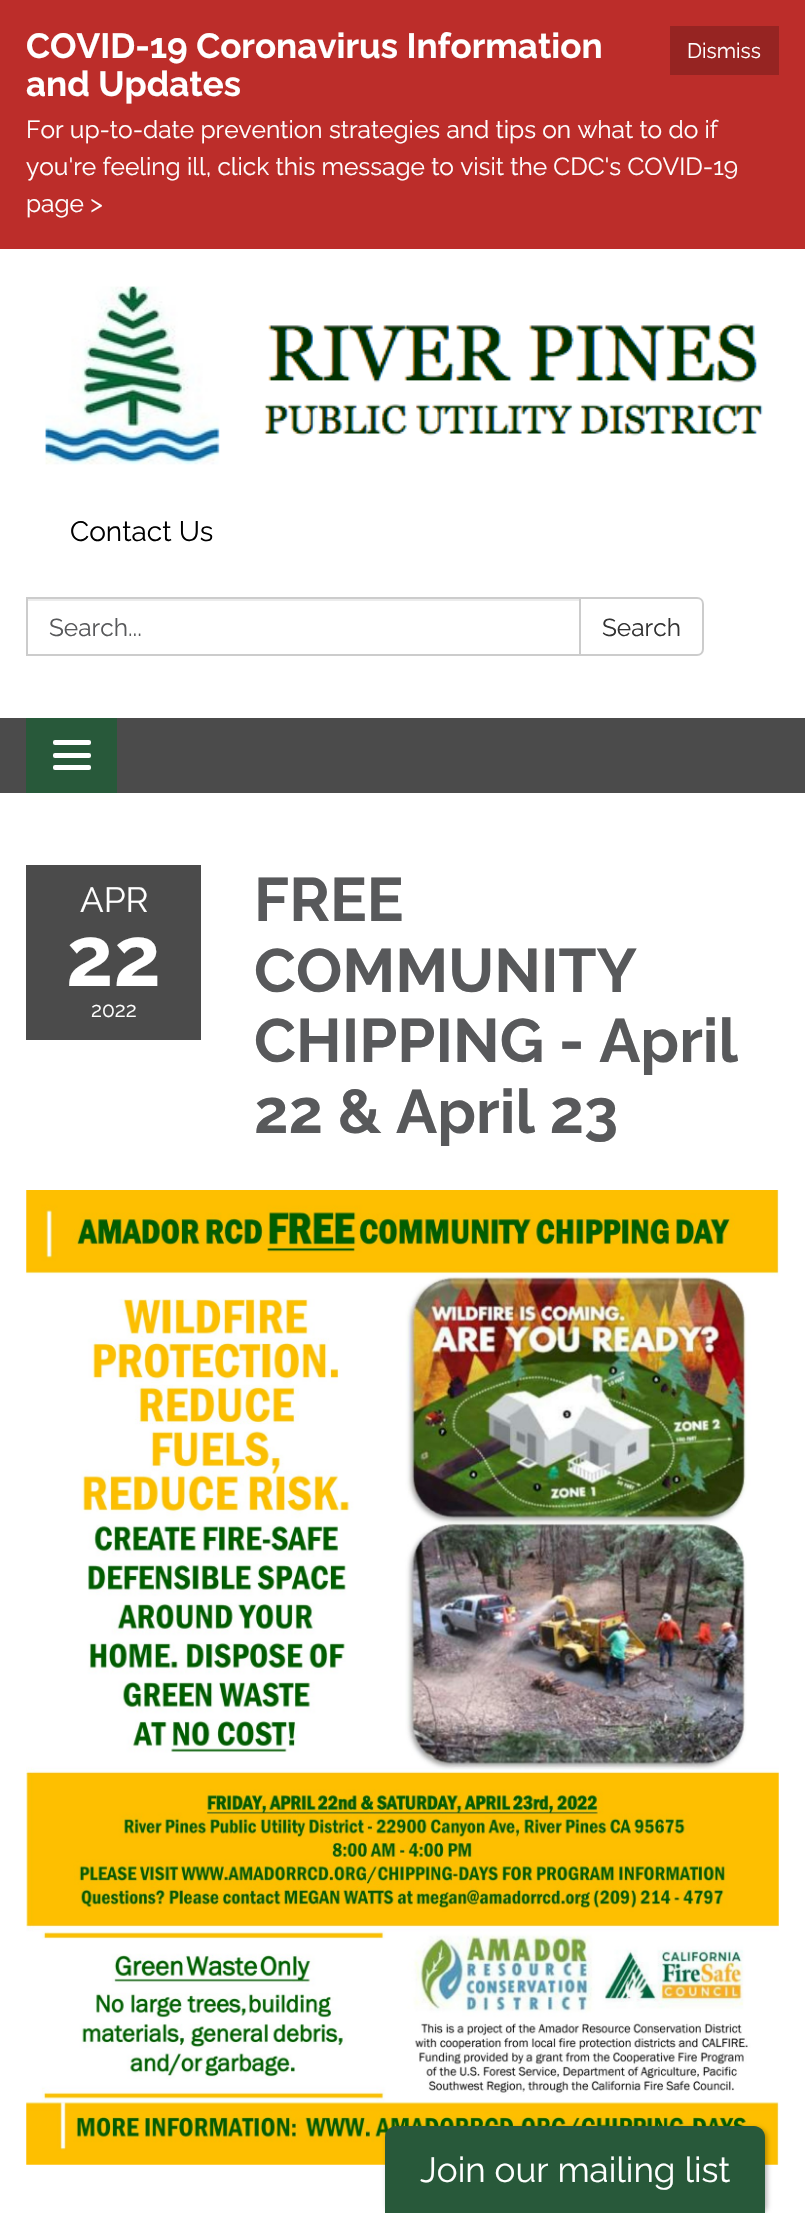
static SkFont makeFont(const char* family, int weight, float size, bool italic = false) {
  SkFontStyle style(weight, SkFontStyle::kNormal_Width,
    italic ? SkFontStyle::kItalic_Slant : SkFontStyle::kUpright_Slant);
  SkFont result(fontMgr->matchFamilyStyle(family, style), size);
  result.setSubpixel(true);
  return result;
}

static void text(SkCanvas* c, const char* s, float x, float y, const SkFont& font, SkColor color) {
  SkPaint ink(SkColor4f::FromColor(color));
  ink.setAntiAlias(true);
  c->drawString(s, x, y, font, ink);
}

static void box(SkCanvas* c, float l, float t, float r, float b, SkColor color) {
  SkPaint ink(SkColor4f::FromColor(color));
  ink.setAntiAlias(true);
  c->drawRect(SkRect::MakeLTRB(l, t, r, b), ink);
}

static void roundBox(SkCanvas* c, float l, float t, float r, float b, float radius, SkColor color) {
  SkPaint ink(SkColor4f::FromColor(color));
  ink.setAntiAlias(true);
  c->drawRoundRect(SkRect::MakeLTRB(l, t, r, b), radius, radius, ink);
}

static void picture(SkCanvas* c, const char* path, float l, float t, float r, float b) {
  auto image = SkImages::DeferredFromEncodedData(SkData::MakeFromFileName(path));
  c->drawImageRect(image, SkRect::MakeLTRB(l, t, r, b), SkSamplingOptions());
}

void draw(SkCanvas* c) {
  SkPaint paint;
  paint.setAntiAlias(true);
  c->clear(0xff4b4b4b);
  box(c, 0, 0, 805, 249, 0xffbc2d2a);
  SkFont face1 = makeFont("Raleway", 700, 35);
  text(c, "COVID-19 Coronavirus Information", 26, 58, face1, 0xffffffff);
  text(c, "and Updates", 26, 96, face1, 0xffffffff);
  box(c, 670, 26, 779, 75, 0xff962422);
  SkFont face2 = makeFont("Raleway", 400, 21);
  text(c, "Dismiss", 687, 58, face2, 0xffffffff);
  SkFont face3 = makeFont("Raleway", 400, 24.5f);
  text(c, "For up-to-date prevention strategies and tips on what to do if", 26, 138, face3, 0xffffffff);
  text(c, "you're feeling ill, click this message to visit the CDC's COVID-19", 26, 175, face3, 0xffffffff);
  text(c, "page >", 26, 212, face3, 0xffffffff);
  box(c, 0, 249, 805, 718, 0xffffffff);
  picture(c, "img_01.png", 45, 286, 763, 465);
  SkFont face4 = makeFont("Raleway", 400, 28);
  text(c, "Contact Us", 70, 541, face4, 0xff000000);
  box(c, 28, 599, 579, 601, 0xffececec);
  paint.setStyle(SkPaint::kStroke_Style);
  paint.setStrokeWidth(2);
  paint.setColor(0xffcccccc);
  c->drawRect(SkRect::MakeLTRB(27, 598, 580, 655), paint);
  text(c, "Search...", 49, 636, face3, 0xff58595b);
  paint.setStyle(SkPaint::kFill_Style);
  paint.setColor(0xffffffff);
  c->drawPath(SkPathBuilder().moveTo(580, 598).lineTo(697, 598).cubicTo(700.5f, 598, 703, 600.5f, 703, 604).lineTo(703, 649).cubicTo(703, 652.5f, 700.5f, 655, 697, 655).lineTo(580, 655).close().detach(), paint);
  paint.setStyle(SkPaint::kStroke_Style);
  paint.setColor(0xffcccccc);
  c->drawPath(SkPathBuilder().moveTo(580, 598).lineTo(697, 598).cubicTo(700.5f, 598, 703, 600.5f, 703, 604).lineTo(703, 649).cubicTo(703, 652.5f, 700.5f, 655, 697, 655).lineTo(580, 655).close().detach(), paint);
  text(c, "Search", 602, 636, face3, 0xff333333);
  box(c, 26, 718, 117, 793, 0xff28593a);
  roundBox(c, 53, 740, 91, 745, 2, 0xffffffff);
  roundBox(c, 53, 753, 91, 758, 2, 0xffffffff);
  roundBox(c, 53, 765, 91, 770, 2, 0xffffffff);
  box(c, 0, 793, 805, 2213, 0xffffffff);
  box(c, 26, 865, 201, 1040, 0xff4b4b4b);
  SkFont face5 = makeFont("Raleway", 400, 35);
  text(c, "APR", 80, 912, face5, 0xffffffff);
  SkFont face6 = makeFont("Raleway", 700, 84);
  text(c, "22", 66, 986, face6, 0xffffffff);
  text(c, "2022", 91, 1017, face2, 0xffffffff);
  SkFont face7 = makeFont("Raleway", 700, 61.25f);
  text(c, "FREE", 254, 921, face7, 0xff58595b);
  text(c, "COMMUNITY", 254, 992, face7, 0xff58595b);
  text(c, "CHIPPING - April", 254, 1062, face7, 0xff58595b);
  text(c, "22 & April 23", 254, 1133, face7, 0xff58595b);
  picture(c, "img_02.png", 26, 1190, 779, 2165);
  paint.setStyle(SkPaint::kFill_Style);
  paint.setColor(0x4d000000);
  paint.setMaskFilter(SkMaskFilter::MakeBlur(kNormal_SkBlurStyle, 2.5f));
  c->drawRoundRect(SkRect::MakeLTRB(387, 2128, 767, 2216), 11, 11, paint);
  paint.setMaskFilter(nullptr);
  paint.setColor(0xff28593a);
  c->drawPath(SkPathBuilder().moveTo(396, 2126).lineTo(754, 2126).cubicTo(760, 2126, 765, 2131, 765, 2137).lineTo(765, 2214).lineTo(385, 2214).lineTo(385, 2137).cubicTo(385, 2131, 390, 2126, 396, 2126).close().detach(), paint);
  text(c, "Join our mailing list", 420, 2182, face5, 0xffffffff);
}
